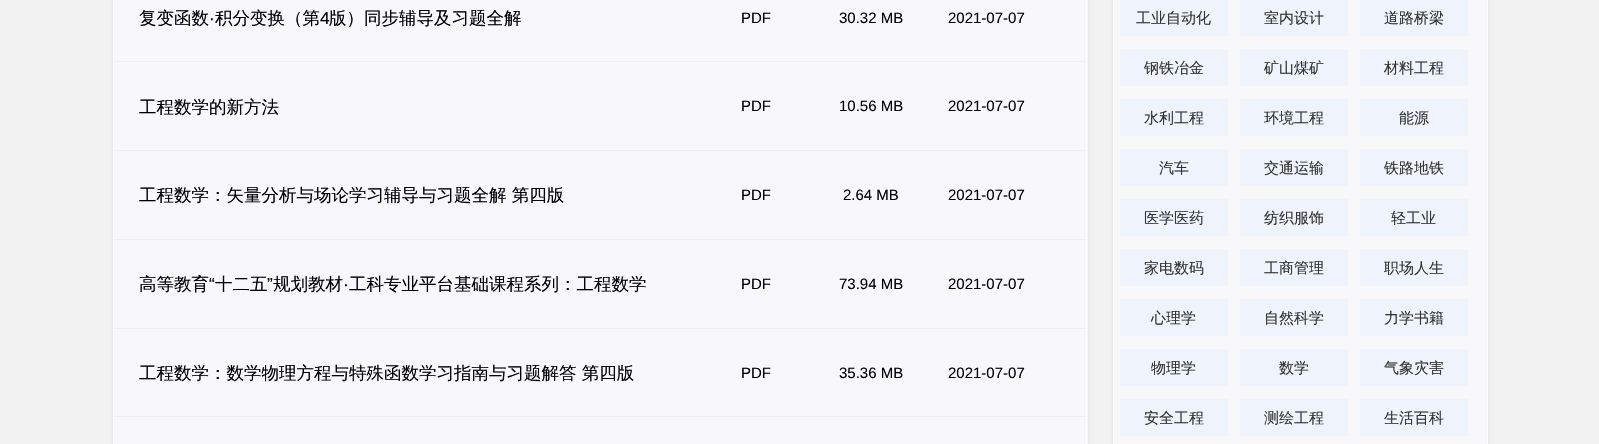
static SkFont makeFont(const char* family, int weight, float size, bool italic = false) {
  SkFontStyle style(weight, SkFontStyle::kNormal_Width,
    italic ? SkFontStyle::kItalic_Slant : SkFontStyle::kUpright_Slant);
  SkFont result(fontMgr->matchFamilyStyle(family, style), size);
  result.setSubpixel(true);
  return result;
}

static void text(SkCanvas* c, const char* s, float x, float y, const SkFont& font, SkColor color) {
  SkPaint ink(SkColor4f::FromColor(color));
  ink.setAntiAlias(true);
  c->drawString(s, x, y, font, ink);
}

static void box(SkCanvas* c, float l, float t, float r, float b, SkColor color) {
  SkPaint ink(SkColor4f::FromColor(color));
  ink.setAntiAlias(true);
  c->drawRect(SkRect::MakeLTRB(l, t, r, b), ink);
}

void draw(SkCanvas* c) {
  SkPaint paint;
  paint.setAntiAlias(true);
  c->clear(0xfff2f2f2);
  paint.setColor(0xffdddddd);
  paint.setMaskFilter(SkMaskFilter::MakeBlur(kNormal_SkBlurStyle, 2));
  c->drawRect(SkRect::MakeLTRB(113, -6, 1088, 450), paint);
  paint.setMaskFilter(nullptr);
  box(c, 114, 0, 1088, 444, 0xfff8f8fa);
  box(c, 1086, 0, 1087, 444, 0xffffffff);
  box(c, 113, 0, 114, 444, 0xffffffff);
  box(c, 114, 61, 1086, 62, 0xffefefef);
  SkFont face1 = makeFont("WenQuanYi Zen Hei", 500, 17.5f);
  text(c, "复变函数", 139, 24, face1, 0xff000000);
  SkFont face2 = makeFont("Liberation Sans", 400, 17.5f);
  text(c, "·", 209, 24, face2, 0xff000000);
  text(c, "积分变换（第", 215, 24, face1, 0xff000000);
  text(c, "4", 320, 24, face2, 0xff000000);
  text(c, "版）同步辅导及习题全解", 329, 24, face1, 0xff000000);
  SkFont face3 = makeFont("Liberation Sans", 400, 15);
  text(c, "PDF", 741, 23, face3, 0xff000000);
  text(c, "30.32 MB", 839, 23, face3, 0xff000000);
  text(c, "2021-07-07", 948, 23, face3, 0xff000000);
  box(c, 114, 150, 1086, 151, 0xffefefef);
  text(c, "工程数学的新方法", 139, 113, face1, 0xff000000);
  text(c, "PDF", 741, 111, face3, 0xff000000);
  text(c, "10.56 MB", 839, 111, face3, 0xff000000);
  text(c, "2021-07-07", 948, 111, face3, 0xff000000);
  box(c, 114, 239, 1086, 240, 0xffefefef);
  text(c, "工程数学：矢量分析与场论学习辅导与习题全解 第四版", 139, 201, face1, 0xff000000);
  text(c, "PDF", 741, 200, face3, 0xff000000);
  text(c, "2.64 MB", 843, 200, face3, 0xff000000);
  text(c, "2021-07-07", 948, 200, face3, 0xff000000);
  box(c, 114, 328, 1086, 329, 0xffefefef);
  text(c, "高等教育", 139, 290, face1, 0xff000000);
  text(c, "“", 209, 290, face2, 0xff000000);
  text(c, "十二五", 215, 290, face1, 0xff000000);
  text(c, "”", 267, 290, face2, 0xff000000);
  text(c, "规划教材", 273, 290, face1, 0xff000000);
  text(c, "工科专业平台基础课程系列：工程数学", 349, 290, face1, 0xff000000);
  text(c, "·", 343, 290, face2, 0xff000000);
  text(c, "PDF", 741, 289, face3, 0xff000000);
  text(c, "73.94 MB", 839, 289, face3, 0xff000000);
  text(c, "2021-07-07", 948, 289, face3, 0xff000000);
  box(c, 114, 416, 1086, 417, 0xffefefef);
  text(c, "工程数学：数学物理方程与特殊函数学习指南与习题解答 第四版", 139, 379, face1, 0xff000000);
  text(c, "PDF", 741, 378, face3, 0xff000000);
  text(c, "35.36 MB", 839, 378, face3, 0xff000000);
  text(c, "2021-07-07", 948, 378, face3, 0xff000000);
  paint.setMaskFilter(SkMaskFilter::MakeBlur(kNormal_SkBlurStyle, 2));
  c->drawRect(SkRect::MakeLTRB(1113, -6, 1488, 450), paint);
  paint.setMaskFilter(nullptr);
  paint.setColor(0xfff8f8fa);
  c->drawRect(SkRect::MakeLTRB(1113.5f, -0.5f, 1487.5f, 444.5f), paint);
  paint.setStyle(SkPaint::kStroke_Style);
  paint.setStrokeWidth(1);
  paint.setColor(0xffffffff);
  c->drawRect(SkRect::MakeLTRB(1113.5f, -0.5f, 1487.5f, 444.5f), paint);
  box(c, 1120, 0, 1228, 36, 0xffeff3fb);
  SkFont face4 = makeFont("WenQuanYi Zen Hei", 500, 15);
  text(c, "工业自动化", 1136, 23, face4, 0xff333333);
  box(c, 1240, 0, 1348, 36, 0xffeff3fb);
  text(c, "室内设计", 1264, 23, face4, 0xff333333);
  box(c, 1360, 0, 1468, 36, 0xffeff3fb);
  text(c, "道路桥梁", 1384, 23, face4, 0xff333333);
  box(c, 1120, 49, 1228, 86, 0xffeff3fb);
  text(c, "钢铁冶金", 1144, 73, face4, 0xff333333);
  box(c, 1240, 49, 1348, 86, 0xffeff3fb);
  text(c, "矿山煤矿", 1264, 73, face4, 0xff333333);
  box(c, 1360, 49, 1468, 86, 0xffeff3fb);
  text(c, "材料工程", 1384, 73, face4, 0xff333333);
  box(c, 1120, 99, 1228, 136, 0xffeff3fb);
  text(c, "水利工程", 1144, 123, face4, 0xff333333);
  box(c, 1240, 99, 1348, 136, 0xffeff3fb);
  text(c, "环境工程", 1264, 123, face4, 0xff333333);
  box(c, 1360, 99, 1468, 136, 0xffeff3fb);
  text(c, "能源", 1399, 123, face4, 0xff333333);
  box(c, 1120, 149, 1228, 186, 0xffeff3fb);
  text(c, "汽车", 1159, 173, face4, 0xff333333);
  box(c, 1240, 149, 1348, 186, 0xffeff3fb);
  text(c, "交通运输", 1264, 173, face4, 0xff333333);
  box(c, 1360, 149, 1468, 186, 0xffeff3fb);
  text(c, "铁路地铁", 1384, 173, face4, 0xff333333);
  box(c, 1120, 199, 1228, 236, 0xffeff3fb);
  text(c, "医学医药", 1144, 223, face4, 0xff333333);
  box(c, 1240, 199, 1348, 236, 0xffeff3fb);
  text(c, "纺织服饰", 1264, 223, face4, 0xff333333);
  box(c, 1360, 199, 1468, 236, 0xffeff3fb);
  text(c, "轻工业", 1391, 223, face4, 0xff333333);
  box(c, 1120, 249, 1228, 286, 0xffeff3fb);
  text(c, "家电数码", 1144, 273, face4, 0xff333333);
  box(c, 1240, 249, 1348, 286, 0xffeff3fb);
  text(c, "工商管理", 1264, 273, face4, 0xff333333);
  box(c, 1360, 249, 1468, 286, 0xffeff3fb);
  text(c, "职场人生", 1384, 273, face4, 0xff333333);
  box(c, 1120, 299, 1228, 336, 0xffeff3fb);
  text(c, "心理学", 1151, 323, face4, 0xff333333);
  box(c, 1240, 299, 1348, 336, 0xffeff3fb);
  text(c, "自然科学", 1264, 323, face4, 0xff333333);
  box(c, 1360, 299, 1468, 336, 0xffeff3fb);
  text(c, "力学书籍", 1384, 323, face4, 0xff333333);
  box(c, 1120, 349, 1228, 386, 0xffeff3fb);
  text(c, "物理学", 1151, 373, face4, 0xff333333);
  box(c, 1240, 349, 1348, 386, 0xffeff3fb);
  text(c, "数学", 1279, 373, face4, 0xff333333);
  box(c, 1360, 349, 1468, 386, 0xffeff3fb);
  text(c, "气象灾害", 1384, 373, face4, 0xff333333);
  box(c, 1120, 399, 1228, 436, 0xffeff3fb);
  text(c, "安全工程", 1144, 423, face4, 0xff333333);
  box(c, 1240, 399, 1348, 436, 0xffeff3fb);
  text(c, "测绘工程", 1264, 423, face4, 0xff333333);
  box(c, 1360, 399, 1468, 436, 0xffeff3fb);
  text(c, "生活百科", 1384, 423, face4, 0xff333333);
}
